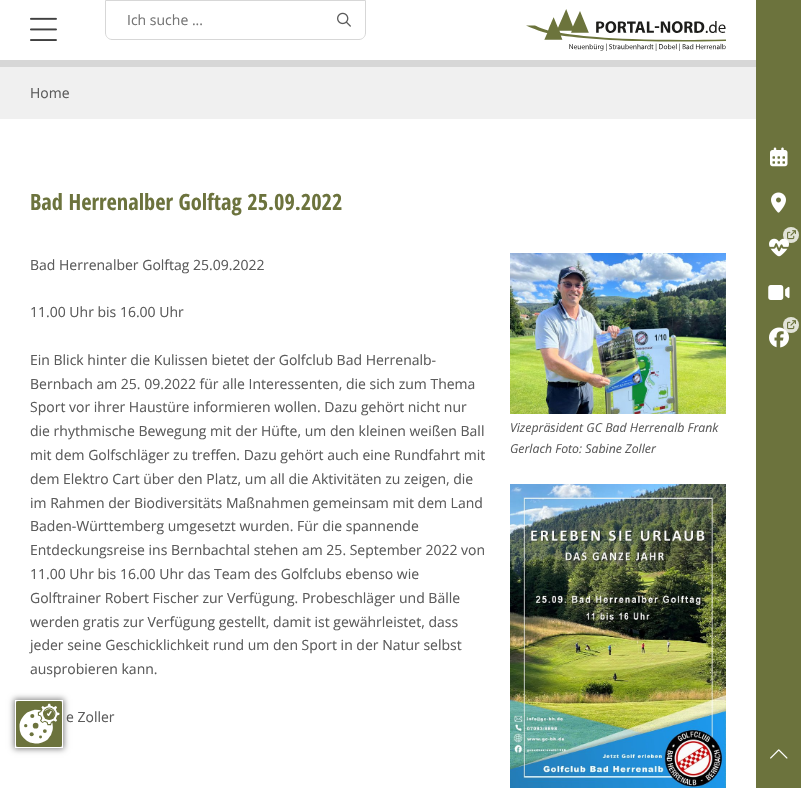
static SkFont makeFont(const char* family, int weight, float size, bool italic = false) {
  SkFontStyle style(weight, SkFontStyle::kNormal_Width,
    italic ? SkFontStyle::kItalic_Slant : SkFontStyle::kUpright_Slant);
  SkFont result(fontMgr->matchFamilyStyle(family, style), size);
  result.setSubpixel(true);
  return result;
}

static void text(SkCanvas* c, const char* s, float x, float y, const SkFont& font, SkColor color) {
  SkPaint ink(SkColor4f::FromColor(color));
  ink.setAntiAlias(true);
  c->drawString(s, x, y, font, ink);
}

static void box(SkCanvas* c, float l, float t, float r, float b, SkColor color) {
  SkPaint ink(SkColor4f::FromColor(color));
  ink.setAntiAlias(true);
  c->drawRect(SkRect::MakeLTRB(l, t, r, b), ink);
}

static void picture(SkCanvas* c, const char* path, float l, float t, float r, float b) {
  auto image = SkImages::DeferredFromEncodedData(SkData::MakeFromFileName(path));
  c->drawImageRect(image, SkRect::MakeLTRB(l, t, r, b), SkSamplingOptions());
}

void draw(SkCanvas* c) {
  SkPaint paint;
  paint.setAntiAlias(true);
  c->clear(0xffffffff);
  box(c, 0, 60, 756, 67, 0xffd7d7d7);
  picture(c, "img_01.png", 30, 17, 57, 41);
  paint.setStyle(SkPaint::kStroke_Style);
  paint.setStrokeWidth(1);
  paint.setColor(0xffd7d7d7);
  c->drawPath(SkPathBuilder().moveTo(105.5f, 0.5f).lineTo(365.5f, 0.5f).lineTo(365.5f, 33).cubicTo(365.5f, 36.5f, 362.5f, 39.5f, 359, 39.5f).lineTo(112, 39.5f).cubicTo(108.5f, 39.5f, 105.5f, 36.5f, 105.5f, 33).close().detach(), paint);
  SkFont face1 = makeFont("Open Sans", 400, 14);
  text(c, "Ich suche ...", 127, 25, face1, 0xff757575);
  picture(c, "img_02.png", 337, 12, 351, 27);
  picture(c, "img_03.png", 526, 9, 726, 51);
  box(c, 0, 67, 756, 119, 0xfff0f0f0);
  text(c, "Home", 30, 98, face1, 0xff5b5b5b);
  SkFont face2 = makeFont("Open Sans Condensed", 700, 22.4f);
  text(c, "Bad Herrenalber Golftag 25.09.2022", 30, 210, face2, 0xff6c733d);
  text(c, "Bad Herrenalber Golftag 25.09.2022", 30, 270, face1, 0xff5b5b5b);
  text(c, "11.00 Uhr bis 16.00 Uhr", 30, 317, face1, 0xff5b5b5b);
  text(c, "Ein Blick hinter die Kulissen bietet der Golfclub Bad Herrenalb-", 30, 365, face1, 0xff5b5b5b);
  text(c, "Bernbach am 25. 09.2022 für alle Interessenten, die sich zum Thema", 30, 389, face1, 0xff5b5b5b);
  text(c, "Sport vor ihrer Haustüre informieren wollen. Dazu gehört nicht nur", 30, 412, face1, 0xff5b5b5b);
  text(c, "die rhythmische Bewegung mit der Hüfte, um den kleinen weißen Ball", 30, 436, face1, 0xff5b5b5b);
  text(c, "mit dem Golfschläger zu treffen. Dazu gehört auch eine Rundfahrt mit", 30, 460, face1, 0xff5b5b5b);
  text(c, "dem Elektro Cart über den Platz, um all die Aktivitäten zu zeigen, die", 30, 484, face1, 0xff5b5b5b);
  text(c, "im Rahmen der Biodiversitäts Maßnahmen gemeinsam mit dem Land", 30, 508, face1, 0xff5b5b5b);
  text(c, "Baden-Württemberg umgesetzt wurden. Für die spannende", 30, 531, face1, 0xff5b5b5b);
  text(c, "Entdeckungsreise ins Bernbachtal stehen am 25. September 2022 von", 30, 555, face1, 0xff5b5b5b);
  text(c, "11.00 Uhr bis 16.00 Uhr das Team des Golfclubs ebenso wie", 30, 579, face1, 0xff5b5b5b);
  text(c, "Golftrainer Robert Fischer zur Verfügung. Probeschläger und Bälle", 30, 603, face1, 0xff5b5b5b);
  text(c, "werden gratis zur Verfügung gestellt, damit ist gewährleistet, dass", 30, 627, face1, 0xff5b5b5b);
  text(c, "jeder seine Geschicklichkeit rund um den Sport in der Natur selbst", 30, 650, face1, 0xff5b5b5b);
  text(c, "ausprobieren kann.", 30, 674, face1, 0xff5b5b5b);
  text(c, "e Zoller", 66, 722, face1, 0xff5b5b5b);
  picture(c, "img_04.png", 510, 253, 726, 414);
  SkFont face3 = makeFont("Open Sans", 400, 12.3f, true);
  text(c, "Vizepräsident GC Bad Herrenalb Frank", 510, 432, face3, 0xff5b5b5b);
  text(c, "Gerlach Foto: Sabine Zoller", 510, 453, face3, 0xff5b5b5b);
  picture(c, "img_05.png", 510, 484, 726, 788);
  box(c, 756, 0, 801, 788, 0xff6c733d);
  picture(c, "img_06.png", 770, 147, 788, 167);
  picture(c, "img_07.png", 771, 192, 786, 213);
  picture(c, "img_09.png", 769, 238, 789, 257);
  paint.setStyle(SkPaint::kFill_Style);
  paint.setColor(0xccffffff);
  c->drawCircle(791, 235, 8, paint);
  picture(c, "img_08.png", 787, 230, 796, 240);
  picture(c, "img_10.png", 768, 285, 790, 300);
  picture(c, "img_12.png", 769, 327, 789, 348);
  c->drawCircle(791, 325, 8, paint);
  picture(c, "img_11.png", 787, 320, 796, 330);
  picture(c, "img_13.png", 770, 749, 788, 759);
  paint.setColor(0x80000000);
  paint.setMaskFilter(SkMaskFilter::MakeBlur(kNormal_SkBlurStyle, 3));
  c->drawRect(SkRect::MakeLTRB(14, 699, 64, 749), paint);
  paint.setMaskFilter(nullptr);
  paint.setStyle(SkPaint::kStroke_Style);
  paint.setColor(0xffffffff);
  c->drawRect(SkRect::MakeLTRB(15.5f, 700.5f, 62.5f, 747.5f), paint);
  picture(c, "img_14.png", 16, 701, 62, 747);
}
